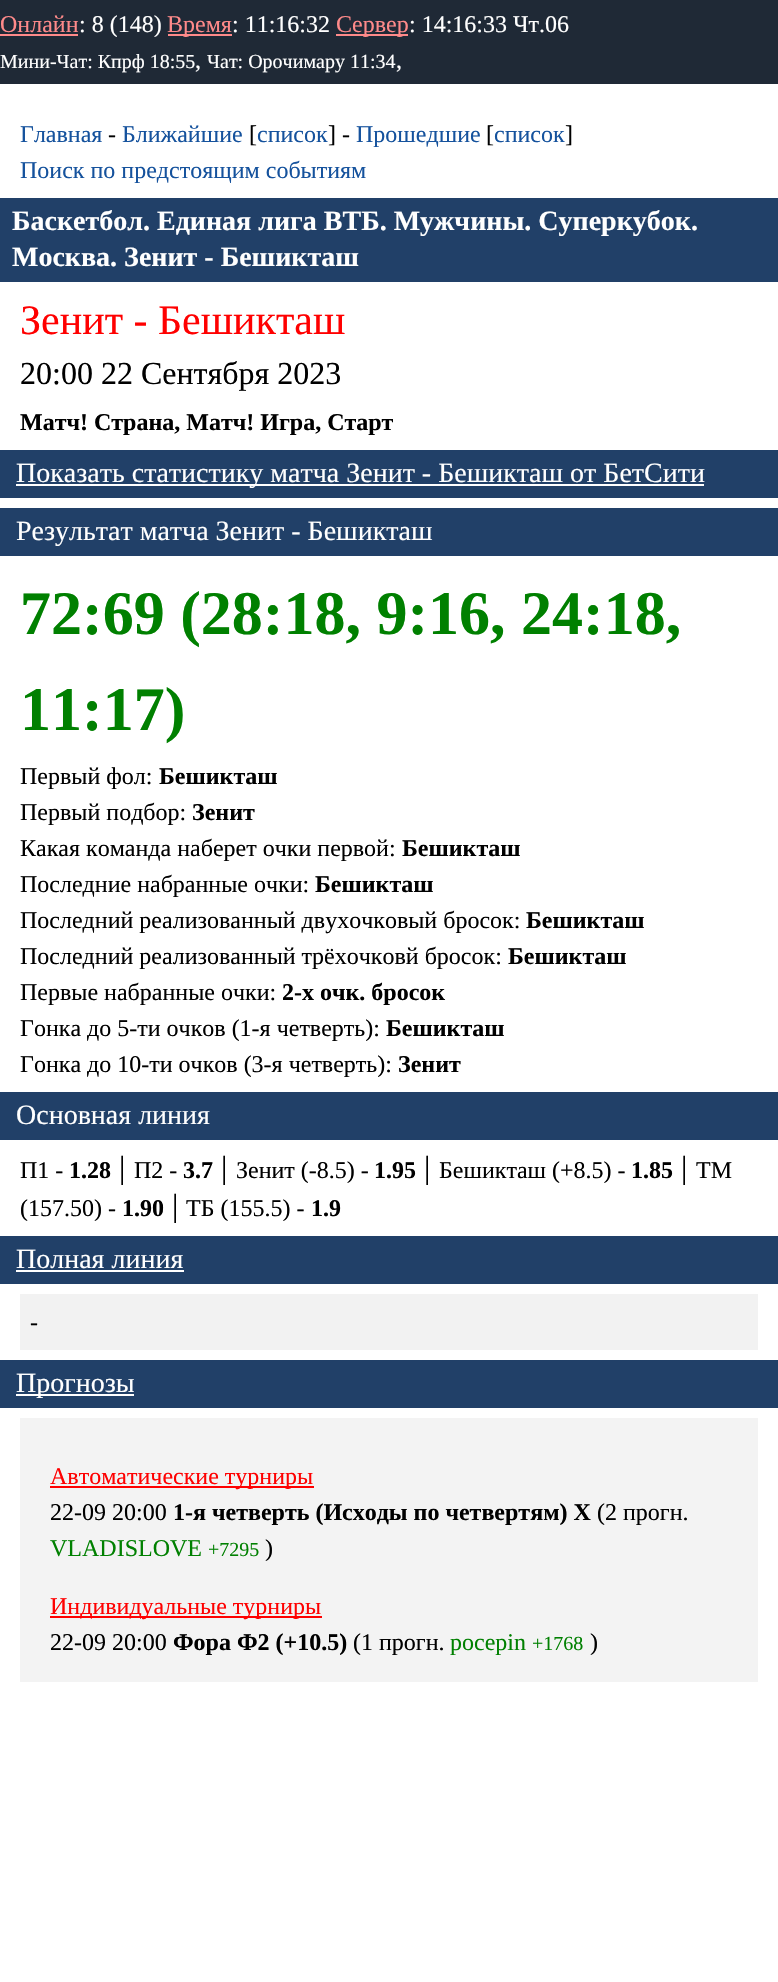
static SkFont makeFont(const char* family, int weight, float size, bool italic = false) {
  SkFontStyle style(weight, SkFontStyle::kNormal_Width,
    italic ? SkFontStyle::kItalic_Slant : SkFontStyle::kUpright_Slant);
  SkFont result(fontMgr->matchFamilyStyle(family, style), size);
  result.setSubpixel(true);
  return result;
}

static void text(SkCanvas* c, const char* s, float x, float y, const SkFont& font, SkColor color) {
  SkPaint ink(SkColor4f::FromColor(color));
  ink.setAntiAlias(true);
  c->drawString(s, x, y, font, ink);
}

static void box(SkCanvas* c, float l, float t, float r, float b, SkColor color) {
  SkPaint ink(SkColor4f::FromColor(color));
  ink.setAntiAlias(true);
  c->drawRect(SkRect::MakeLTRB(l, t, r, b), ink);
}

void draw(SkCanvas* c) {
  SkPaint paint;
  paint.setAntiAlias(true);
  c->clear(0xffffffff);
  box(c, 0, 0, 778, 84, 0xff1f2936);
  SkFont face1 = makeFont("Liberation Serif", 400, 24);
  text(c, "Онлайн", 0, 32, face1, 0xffff8a8a);
  box(c, 0, 34, 78, 36, 0xffff8a8a);
  text(c, ": 8 (148)", 79, 32, face1, 0xffffffff);
  box(c, 168, 34, 232, 36, 0xffff8a8a);
  text(c, "Время", 167, 32, face1, 0xffff8a8a);
  text(c, ": 11:16:32", 232, 32, face1, 0xffffffff);
  box(c, 336, 34, 408, 36, 0xffff8a8a);
  text(c, "Сервер", 336, 32, face1, 0xffff8a8a);
  text(c, ": 14:16:33 Чт.06", 409, 32, face1, 0xffffffff);
  SkFont face2 = makeFont("Liberation Serif", 400, 20);
  text(c, "Мини-Чат: Кпрф 18:55", 0, 68, face2, 0xffffffff);
  text(c, ",", 195, 68, face1, 0xffffffff);
  text(c, "Чат: Орочимару 11:34", 207, 68, face2, 0xffffffff);
  text(c, ",", 396, 68, face1, 0xffffffff);
  text(c, "Главная", 20, 142, face1, 0xff15529d);
  text(c, "-", 108, 142, face1, 0xff000000);
  text(c, "Ближайшие", 122, 142, face1, 0xff15529d);
  text(c, "[", 249, 142, face1, 0xff000000);
  text(c, "список", 257, 142, face1, 0xff15529d);
  text(c, "] -", 328, 142, face1, 0xff000000);
  text(c, "Прошедшие", 356, 142, face1, 0xff15529d);
  text(c, "[", 486, 142, face1, 0xff000000);
  text(c, "список", 494, 142, face1, 0xff15529d);
  text(c, "]", 565, 142, face1, 0xff000000);
  text(c, "Поиск по предстоящим событиям", 20, 178, face1, 0xff15529d);
  box(c, 0, 198, 778, 282, 0xff214068);
  SkFont face3 = makeFont("Liberation Serif", 700, 28);
  text(c, "Баскетбол. Единая лига ВТБ. Мужчины. Суперкубок.", 12, 230, face3, 0xffffffff);
  text(c, "Москва. Зенит - Бешикташ", 12, 266, face3, 0xffffffff);
  SkFont face4 = makeFont("Liberation Serif", 400, 42);
  text(c, "Зенит - Бешикташ", 20, 334, face4, 0xffff0000);
  SkFont face5 = makeFont("Liberation Serif", 400, 32);
  text(c, "20:00 22 Сентября 2023", 20, 384, face5, 0xff000000);
  SkFont face6 = makeFont("Liberation Serif", 700, 24);
  text(c, "Матч! Страна, Матч! Игра, Старт", 20, 430, face6, 0xff000000);
  box(c, 0, 450, 778, 498, 0xff214068);
  box(c, 16, 484, 704, 486, 0xffffffff);
  SkFont face7 = makeFont("Liberation Serif", 400, 28);
  text(c, "Показать статистику матча Зенит - Бешикташ от БетСити", 16, 482, face7, 0xffffffff);
  box(c, 0, 508, 778, 556, 0xff214068);
  text(c, "Результат матча Зенит - Бешикташ", 16, 540, face7, 0xffffffff);
  SkFont face8 = makeFont("Liberation Serif", 700, 62);
  text(c, "72:69 (28:18, 9:16, 24:18,", 20, 634, face8, 0xff008000);
  text(c, "11:17)", 20, 730, face8, 0xff008000);
  text(c, "Первый фол:", 20, 784, face1, 0xff000000);
  text(c, "Бешикташ", 159, 784, face6, 0xff000000);
  text(c, "Первый подбор:", 20, 820, face1, 0xff000000);
  text(c, "Зенит", 192, 820, face6, 0xff000000);
  text(c, "Какая команда наберет очки первой:", 20, 856, face1, 0xff000000);
  text(c, "Бешикташ", 402, 856, face6, 0xff000000);
  text(c, "Последние набранные очки:", 20, 892, face1, 0xff000000);
  text(c, "Бешикташ", 315, 892, face6, 0xff000000);
  text(c, "Последний реализованный двухочковый бросок:", 20, 928, face1, 0xff000000);
  text(c, "Бешикташ", 526, 928, face6, 0xff000000);
  text(c, "Последний реализованный трёхочковй бросок:", 20, 964, face1, 0xff000000);
  text(c, "Бешикташ", 508, 964, face6, 0xff000000);
  text(c, "Первые набранные очки:", 20, 1000, face1, 0xff000000);
  text(c, "2-х очк. бросок", 282, 1000, face6, 0xff000000);
  text(c, "Гонка до 5-ти очков (1-я четверть):", 20, 1036, face1, 0xff000000);
  text(c, "Бешикташ", 386, 1036, face6, 0xff000000);
  text(c, "Гонка до 10-ти очков (3-я четверть):", 20, 1072, face1, 0xff000000);
  text(c, "Зенит", 398, 1072, face6, 0xff000000);
  box(c, 0, 1092, 778, 1140, 0xff214068);
  text(c, "Основная линия", 16, 1124, face7, 0xffffffff);
  text(c, "П1 -", 20, 1178, face1, 0xff000000);
  text(c, "1.28", 69, 1178, face6, 0xff000000);
  text(c, "|", 119, 1178, face5, 0xff000000);
  text(c, "П2 -", 134, 1178, face1, 0xff000000);
  text(c, "3.7", 183, 1178, face6, 0xff000000);
  text(c, "|", 221, 1178, face5, 0xff000000);
  text(c, "Зенит (-8.5) -", 236, 1178, face1, 0xff000000);
  text(c, "1.95", 374, 1178, face6, 0xff000000);
  text(c, "|", 424, 1178, face5, 0xff000000);
  text(c, "Бешикташ (+8.5) -", 439, 1178, face1, 0xff000000);
  text(c, "1.85", 631, 1178, face6, 0xff000000);
  text(c, "|", 681, 1178, face5, 0xff000000);
  text(c, "ТМ", 696, 1178, face1, 0xff000000);
  text(c, "(157.50) -", 20, 1216, face1, 0xff000000);
  text(c, "1.90", 122, 1216, face6, 0xff000000);
  text(c, "|", 172, 1216, face5, 0xff000000);
  text(c, "ТБ (155.5) -", 186, 1216, face1, 0xff000000);
  text(c, "1.9", 311, 1216, face6, 0xff000000);
  box(c, 0, 1236, 778, 1284, 0xff214068);
  text(c, "Полная линия", 16, 1268, face7, 0xffffffff);
  box(c, 16, 1270, 184, 1272, 0xffffffff);
  box(c, 20, 1294, 758, 1350, 0xfff2f2f2);
  text(c, "-", 30, 1330, face1, 0xff000000);
  box(c, 0, 1360, 778, 1408, 0xff214068);
  box(c, 16, 1394, 134, 1396, 0xffffffff);
  text(c, "Прогнозы", 16, 1392, face7, 0xffffffff);
  box(c, 20, 1418, 758, 1682, 0xfff3f3f3);
  box(c, 50, 1486, 314, 1488, 0xffff0000);
  text(c, "Автоматические турниры", 50, 1484, face1, 0xffff0000);
  text(c, "22-09 20:00", 50, 1520, face1, 0xff000000);
  text(c, "1-я четверть (Исходы по четвертям) X", 173, 1520, face6, 0xff000000);
  text(c, "(2 прогн.", 597, 1520, face1, 0xff000000);
  text(c, "VLADISLOVE", 50, 1556, face1, 0xff008000);
  text(c, "+7295", 208, 1556, face2, 0xff008000);
  text(c, ")", 265, 1556, face1, 0xff000000);
  box(c, 50, 1616, 322, 1618, 0xffff0000);
  text(c, "Индивидуальные турниры", 50, 1614, face1, 0xffff0000);
  text(c, "22-09 20:00", 50, 1650, face1, 0xff000000);
  text(c, "Фора Ф2 (+10.5)", 173, 1650, face6, 0xff000000);
  text(c, "(1 прогн.", 353, 1650, face1, 0xff000000);
  text(c, "pocepin", 450, 1650, face1, 0xff008000);
  text(c, "+1768", 532, 1650, face2, 0xff008000);
  text(c, ")", 590, 1650, face1, 0xff000000);
}
